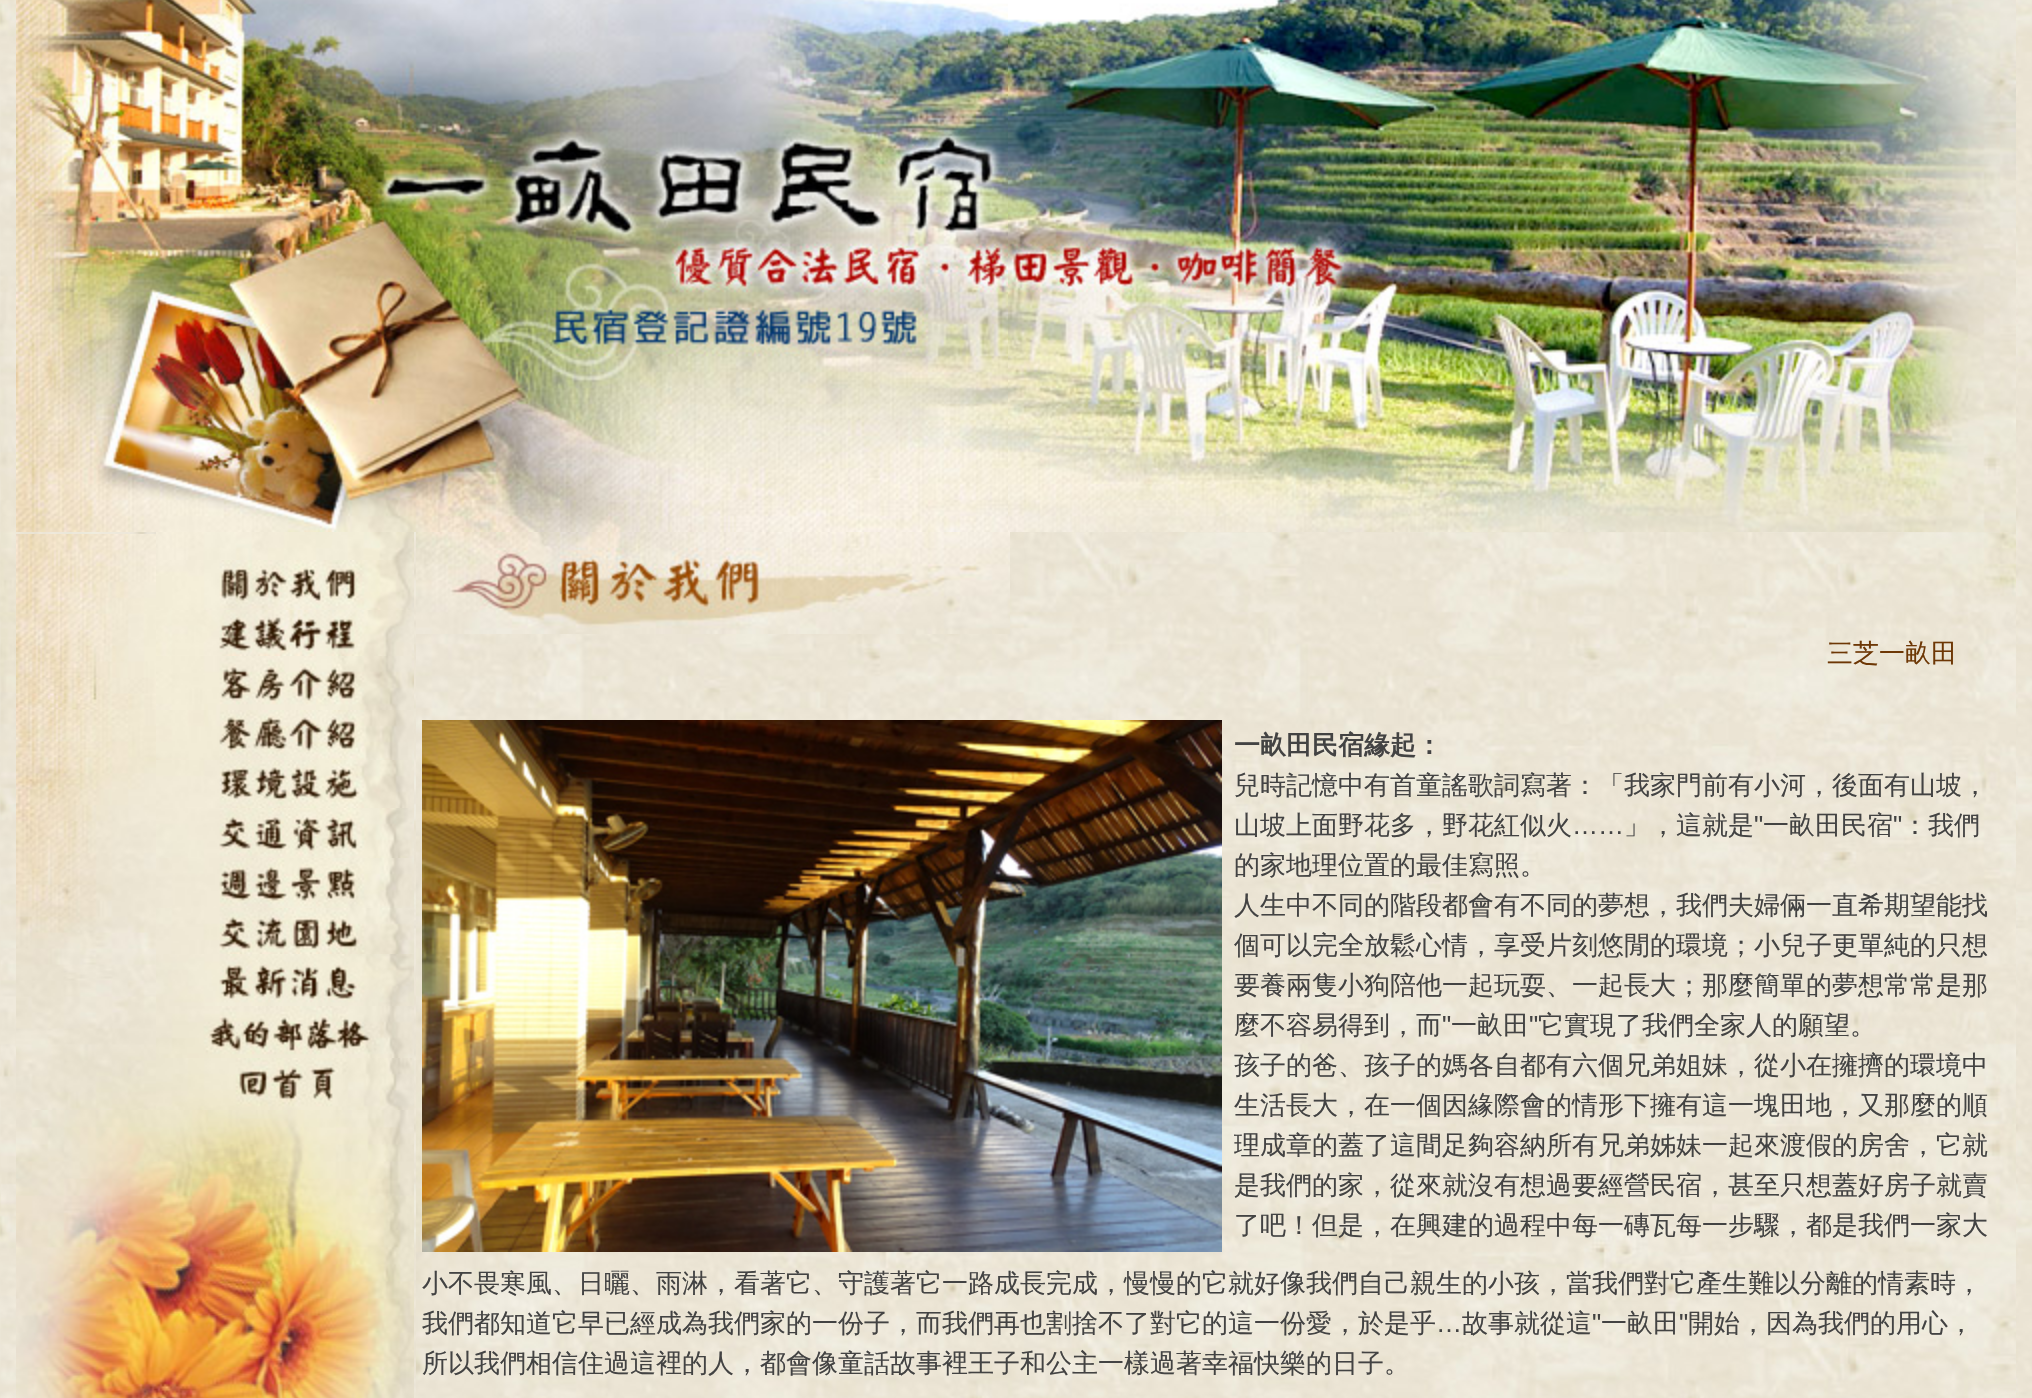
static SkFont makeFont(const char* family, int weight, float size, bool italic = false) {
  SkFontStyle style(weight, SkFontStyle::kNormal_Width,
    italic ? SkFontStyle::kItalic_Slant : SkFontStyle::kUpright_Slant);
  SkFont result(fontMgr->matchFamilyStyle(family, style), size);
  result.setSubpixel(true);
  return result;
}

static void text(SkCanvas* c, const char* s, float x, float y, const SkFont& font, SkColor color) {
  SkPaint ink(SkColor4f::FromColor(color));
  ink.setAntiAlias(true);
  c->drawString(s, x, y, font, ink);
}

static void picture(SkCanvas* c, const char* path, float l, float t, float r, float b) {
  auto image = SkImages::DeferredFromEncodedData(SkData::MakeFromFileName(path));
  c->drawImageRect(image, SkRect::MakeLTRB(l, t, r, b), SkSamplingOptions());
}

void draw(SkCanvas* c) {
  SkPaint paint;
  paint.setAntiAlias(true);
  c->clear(0xffffffff);
  picture(c, "img_01.png", 0, 0, 2032, 1398);
  picture(c, "img_02.png", 16, 0, 1008, 532);
  picture(c, "img_03.png", 1008, 0, 2016, 532);
  picture(c, "img_04.png", 16, 534, 156, 1110);
  picture(c, "img_05.png", 156, 532, 414, 560);
  picture(c, "img_06.png", 156, 560, 414, 610);
  picture(c, "img_07.png", 156, 610, 414, 656);
  picture(c, "img_08.png", 156, 656, 414, 710);
  picture(c, "img_09.png", 156, 710, 414, 760);
  picture(c, "img_10.png", 156, 760, 414, 808);
  picture(c, "img_11.png", 156, 808, 414, 858);
  picture(c, "img_12.png", 156, 858, 414, 908);
  picture(c, "img_13.png", 156, 908, 414, 954);
  picture(c, "img_14.png", 156, 954, 414, 1006);
  picture(c, "img_15.png", 156, 1006, 414, 1058);
  picture(c, "img_16.png", 156, 1058, 414, 1110);
  picture(c, "img_17.png", 16, 1110, 414, 1398);
  picture(c, "img_18.png", 416, 532, 2016, 1398);
  picture(c, "img_19.png", 416, 532, 1010, 634);
  SkFont face1 = makeFont("WenQuanYi Zen Hei", 500, 26);
  text(c, "三芝一畝田", 1827, 662, face1, 0xff6d3705);
  picture(c, "img_20.png", 422, 720, 1222, 1252);
  SkFont face2 = makeFont("WenQuanYi Zen Hei", 700, 26);
  text(c, "一畝田民宿緣起：", 1234, 754, face2, 0xff434343);
  text(c, "兒時記憶中有首童謠歌詞寫著：「我家門前有小河，後面有山坡，", 1234, 794, face1, 0xff434343);
  text(c, "山坡上面野花多，野花紅似火", 1234, 834, face1, 0xff434343);
  text(c, "」，這就是", 1624, 834, face1, 0xff434343);
  SkFont face3 = makeFont("Liberation Sans", 400, 26);
  text(c, "\"", 1754, 834, face3, 0xff434343);
  text(c, "一畝田民宿", 1763, 834, face1, 0xff434343);
  text(c, "\"", 1893, 834, face3, 0xff434343);
  text(c, "：我們", 1902, 834, face1, 0xff434343);
  text(c, "……", 1572, 834, face3, 0xff434343);
  text(c, "的家地理位置的最佳寫照。", 1234, 874, face1, 0xff434343);
  text(c, "人生中不同的階段都會有不同的夢想，我們夫婦倆一直希期望能找", 1234, 914, face1, 0xff434343);
  text(c, "個可以完全放鬆心情，享受片刻悠閒的環境；小兒子更單純的只想", 1234, 954, face1, 0xff434343);
  text(c, "要養兩隻小狗陪他一起玩耍、一起長大；那麼簡單的夢想常常是那", 1234, 994, face1, 0xff434343);
  text(c, "麼不容易得到，而", 1234, 1034, face1, 0xff434343);
  text(c, "\"", 1442, 1034, face3, 0xff434343);
  text(c, "一畝田", 1451, 1034, face1, 0xff434343);
  text(c, "\"", 1529, 1034, face3, 0xff434343);
  text(c, "它實現了我們全家人的願望。", 1538, 1034, face1, 0xff434343);
  text(c, "孩子的爸、孩子的媽各自都有六個兄弟姐妹，從小在擁擠的環境中", 1234, 1074, face1, 0xff434343);
  text(c, "生活長大，在一個因緣際會的情形下擁有這一塊田地，又那麼的順", 1234, 1114, face1, 0xff434343);
  text(c, "理成章的蓋了這間足夠容納所有兄弟姊妹一起來渡假的房舍，它就", 1234, 1154, face1, 0xff434343);
  text(c, "是我們的家，從來就沒有想過要經營民宿，甚至只想蓋好房子就賣", 1234, 1194, face1, 0xff434343);
  text(c, "了吧！但是，在興建的過程中每一磚瓦每一步驟，都是我們一家大", 1234, 1234, face1, 0xff434343);
  text(c, "小不畏寒風、日曬、雨淋，看著它、守護著它一路成長完成，慢慢的它就好像我們自己親生的小孩，當我們對它產生難以分離的情素時，", 422, 1292, face1, 0xff434343);
  text(c, "我們都知道它早已經成為我們家的一份子，而我們再也割捨不了對它的這一份愛，於是乎", 422, 1332, face1, 0xff434343);
  text(c, "故事就從這", 1462, 1332, face1, 0xff434343);
  text(c, "\"", 1592, 1332, face3, 0xff434343);
  text(c, "一畝田", 1601, 1332, face1, 0xff434343);
  text(c, "\"", 1679, 1332, face3, 0xff434343);
  text(c, "開始，因為我們的用心，", 1688, 1332, face1, 0xff434343);
  text(c, "…", 1436, 1332, face3, 0xff434343);
  text(c, "所以我們相信住過這裡的人，都會像童話故事裡王子和公主一樣過著幸福快樂的日子。", 422, 1372, face1, 0xff434343);
}
